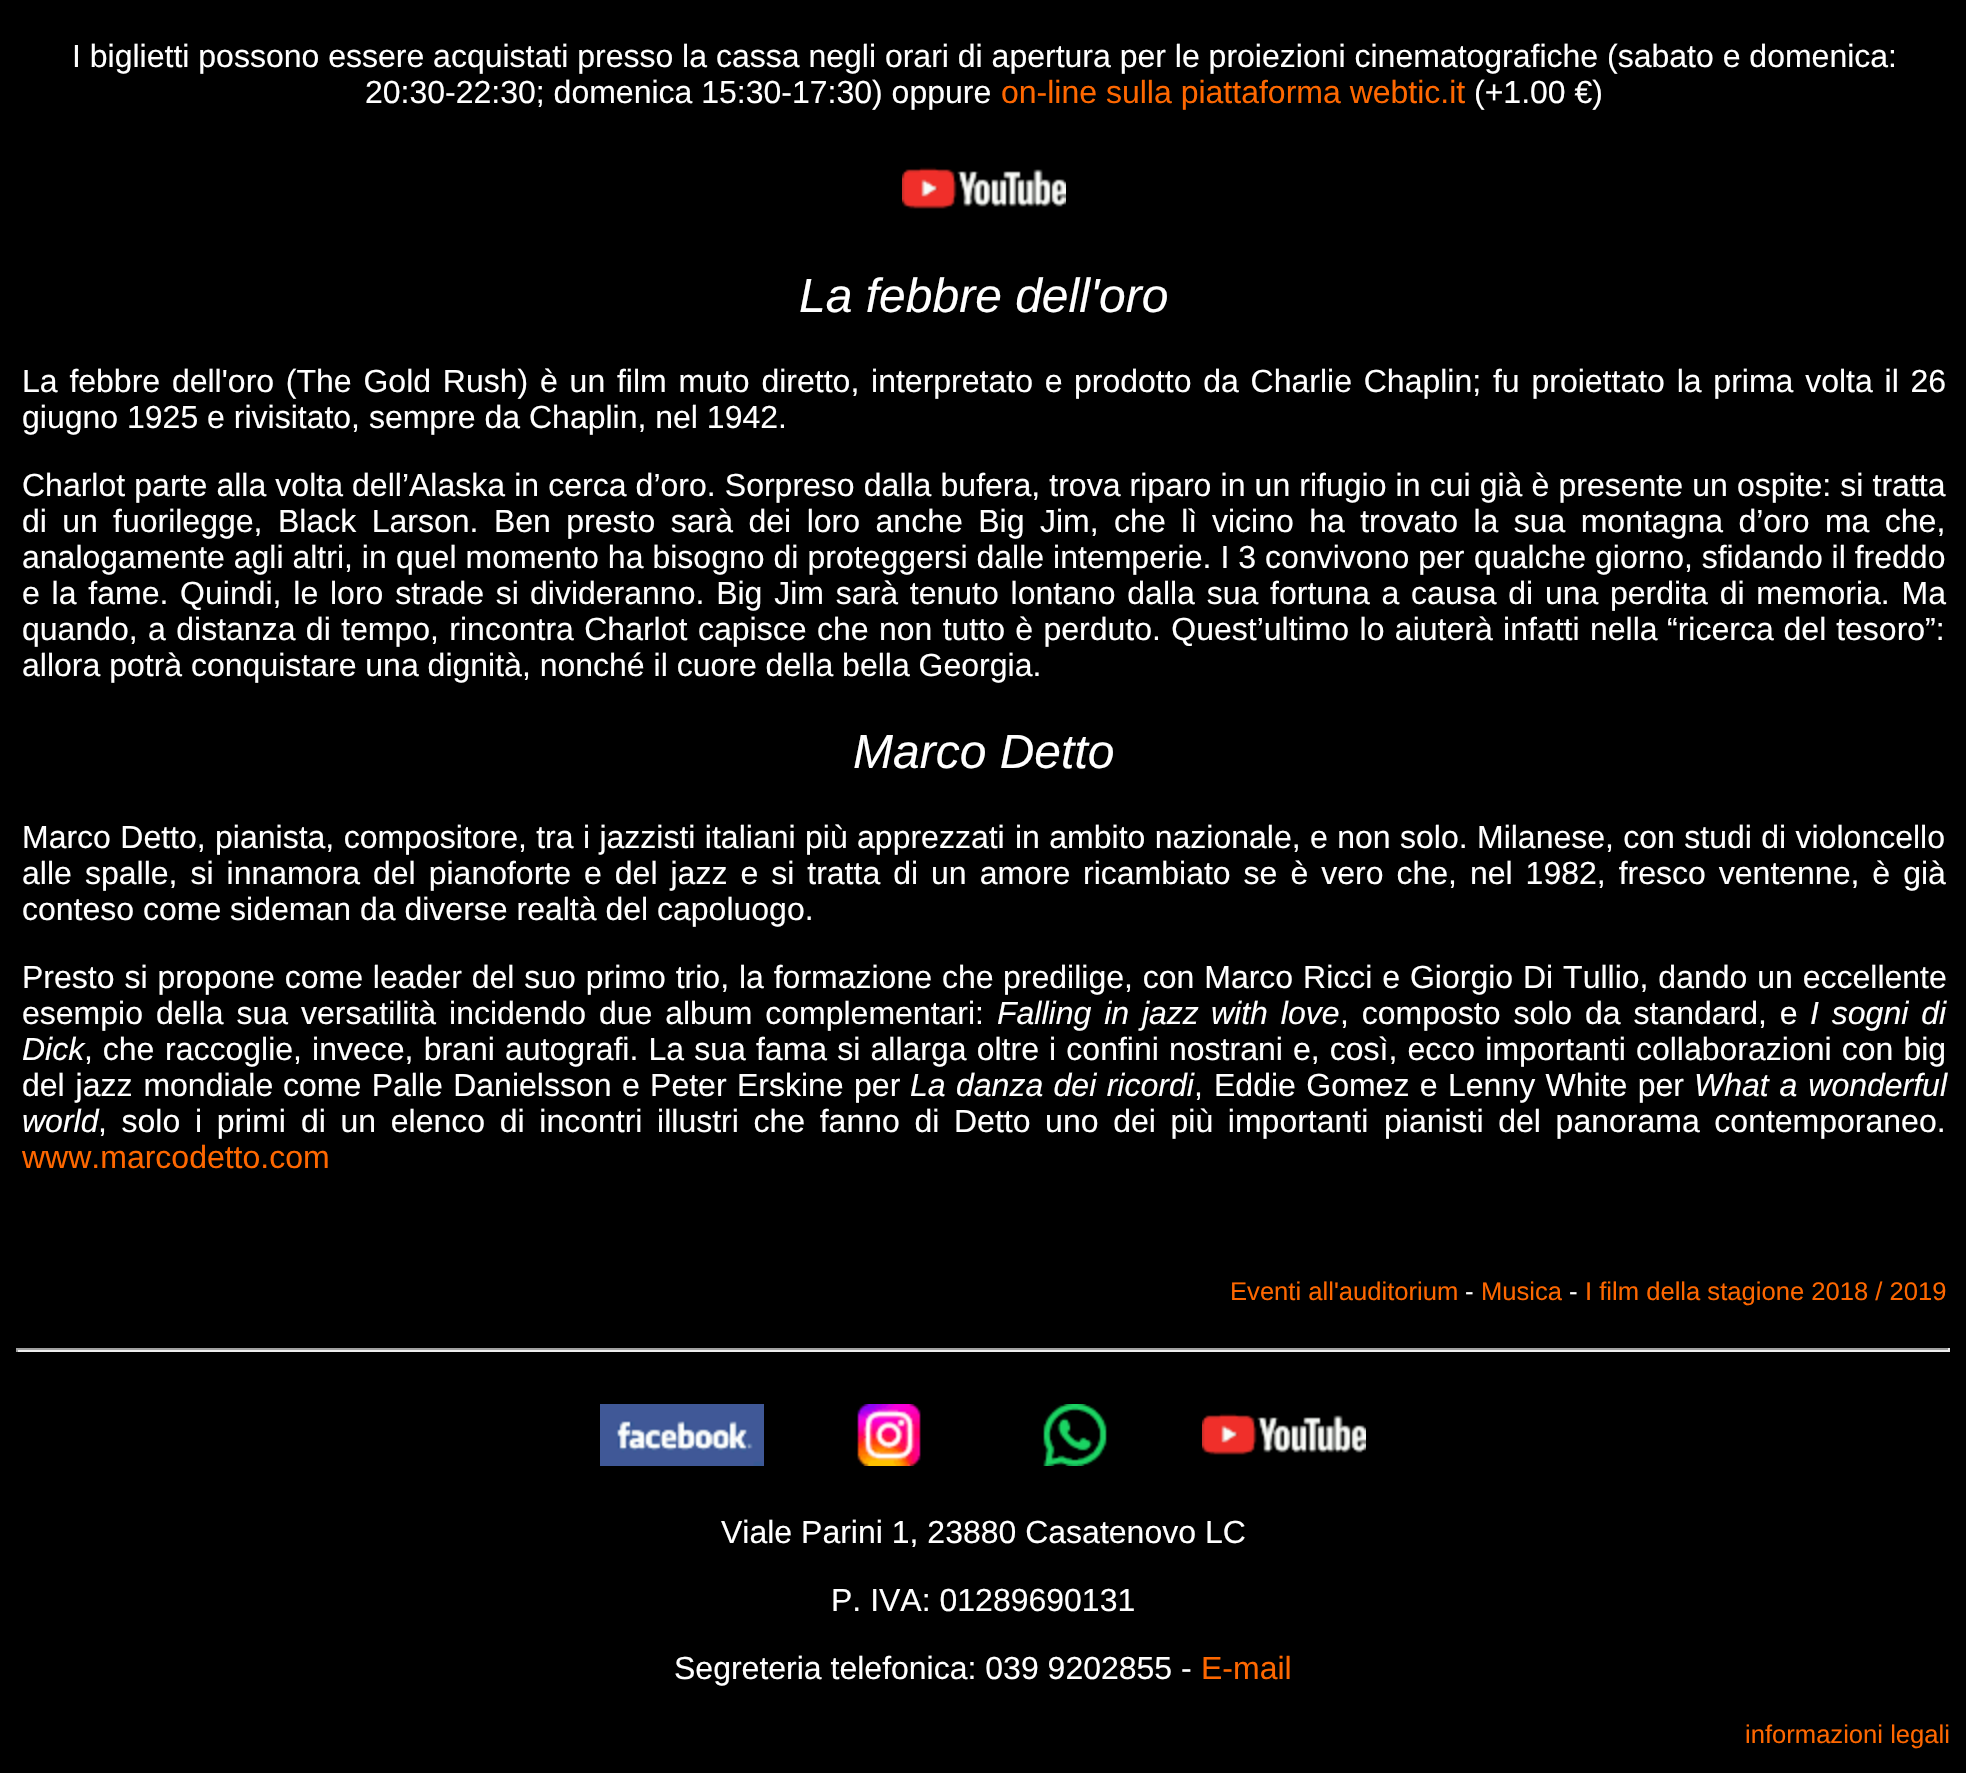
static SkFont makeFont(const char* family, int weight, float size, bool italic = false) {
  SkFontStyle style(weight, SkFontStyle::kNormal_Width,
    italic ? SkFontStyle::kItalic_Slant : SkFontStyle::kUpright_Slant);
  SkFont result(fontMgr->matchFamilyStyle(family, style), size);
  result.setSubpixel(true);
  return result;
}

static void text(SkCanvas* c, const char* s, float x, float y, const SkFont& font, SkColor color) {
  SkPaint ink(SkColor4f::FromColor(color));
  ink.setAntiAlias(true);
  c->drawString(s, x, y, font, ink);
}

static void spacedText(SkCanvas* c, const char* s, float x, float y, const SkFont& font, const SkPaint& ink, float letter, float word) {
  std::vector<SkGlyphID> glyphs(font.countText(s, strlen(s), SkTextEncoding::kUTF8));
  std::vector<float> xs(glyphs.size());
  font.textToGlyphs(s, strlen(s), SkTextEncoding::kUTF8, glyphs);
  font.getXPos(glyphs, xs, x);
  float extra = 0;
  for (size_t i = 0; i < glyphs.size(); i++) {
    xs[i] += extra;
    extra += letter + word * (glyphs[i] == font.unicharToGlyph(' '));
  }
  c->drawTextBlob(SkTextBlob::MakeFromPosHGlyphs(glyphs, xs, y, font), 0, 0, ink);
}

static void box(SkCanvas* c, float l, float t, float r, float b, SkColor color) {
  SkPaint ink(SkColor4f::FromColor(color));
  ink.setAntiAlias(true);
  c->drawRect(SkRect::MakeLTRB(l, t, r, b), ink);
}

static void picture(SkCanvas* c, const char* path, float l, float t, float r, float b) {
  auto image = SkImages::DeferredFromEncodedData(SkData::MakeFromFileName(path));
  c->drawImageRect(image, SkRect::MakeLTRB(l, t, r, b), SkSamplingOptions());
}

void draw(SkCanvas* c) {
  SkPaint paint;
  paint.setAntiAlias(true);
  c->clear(0xff000000);
  SkFont face1 = makeFont("Liberation Sans", 400, 32);
  text(c, "I biglietti possono essere acquistati presso la cassa negli orari di apertura per le proiezioni cinematografiche (sabato e domenica:", 72, 67, face1, 0xffffffff);
  text(c, "20:30-22:30; domenica 15:30-17:30) oppure", 365, 103, face1, 0xffffffff);
  text(c, "on-line sulla piattaforma webtic.it", 1001, 103, face1, 0xfffe6700);
  text(c, "(+1.00 €)", 1474, 103, face1, 0xffffffff);
  picture(c, "img_01.png", 902, 167, 1066, 209);
  SkFont face2 = makeFont("Liberation Sans", 400, 48, true);
  text(c, "La febbre dell'oro", 799, 312, face2, 0xffffffff);
  paint.setColor(0xffffffff);
  spacedText(c, "La febbre dell'oro (The Gold Rush) è un film muto diretto, interpretato e", 22, 392, face1, paint, 0, 2.9f);
  spacedText(c, "prodotto da Charlie Chaplin; fu proiettato la prima volta il 26", 1074, 392, face1, paint, 0, 2.9f);
  text(c, "giugno 1925 e rivisitato, sempre da Chaplin, nel 1942.", 22, 428, face1, 0xffffffff);
  spacedText(c, "Charlot parte alla volta dell’Alaska in cerca d’oro. Sorpreso dalla bufera, trova riparo in un rifugio in cui già è presente un ospite: si tratta", 22, 496, face1, paint, 0, 0.25f);
  spacedText(c, "di un", 22, 532, face1, paint, 0, 6.5f);
  spacedText(c, "fuorilegge, Black Larson. Ben presto sarà dei loro anche Big Jim, che lì", 113, 532, face1, paint, 0, 6.6f);
  spacedText(c, "vicino ha trovato la sua montagna d’oro ma che,", 1212, 532, face1, paint, 0, 6.5f);
  text(c, "analogamente agli altri, in", 22, 568, face1, 0xffffffff);
  spacedText(c, "quel momento ha bisogno di proteggersi dalle intemperie. I 3 convivono per", 396, 568, face1, paint, 0, 0.1f);
  text(c, "qualche giorno, sfidando il freddo", 1474, 568, face1, 0xffffffff);
  spacedText(c, "e la fame. Quindi, le loro strade si", 22, 604, face1, paint, 0, 2.9f);
  spacedText(c, "divideranno. Big Jim sarà tenuto lontano dalla sua fortuna a causa di una", 530, 604, face1, paint, 0, 2.9f);
  spacedText(c, "perdita di memoria. Ma", 1610, 604, face1, paint, 0, 2.9f);
  spacedText(c, "quando, a distanza di tempo, rincontra Charlot", 22, 640, face1, paint, 0, 1.5f);
  spacedText(c, "capisce che non tutto è perduto. Quest’ultimo lo aiuterà infatti nella", 698, 640, face1, paint, 0, 1.5f);
  spacedText(c, "“ricerca del tesoro”:", 1667, 640, face1, paint, 0, 1);
  text(c, "allora potrà conquistare una dignità, nonché il cuore della bella Georgia.", 22, 676, face1, 0xffffffff);
  text(c, "Marco Detto", 853, 768, face2, 0xffffffff);
  spacedText(c, "Marco Detto, pianista, compositore, tra i jazzisti italiani più apprezzati", 22, 848, face1, paint, 0, 0.5f);
  spacedText(c, "in ambito nazionale, e non solo. Milanese, con studi di violoncello", 1015, 848, face1, paint, 0, 0.5f);
  text(c, "alle", 22, 884, face1, 0xffffffff);
  spacedText(c, "spalle, si innamora del pianoforte e del jazz e si tratta di un amore", 85, 884, face1, paint, 0, 4.1f);
  spacedText(c, "ricambiato se è vero che, nel 1982, fresco ventenne, è già", 1083, 884, face1, paint, 0, 4.1f);
  text(c, "conteso come sideman da diverse realtà del capoluogo.", 22, 920, face1, 0xffffffff);
  spacedText(c, "Presto si propone come leader del suo primo trio, la formazione che", 22, 988, face1, paint, 0, 1);
  spacedText(c, "predilige, con Marco Ricci e Giorgio Di Tullio, dando un eccellente", 1003, 988, face1, paint, 0, 1);
  text(c, "esempio", 22, 1024, face1, 0xffffffff);
  spacedText(c, "della sua versatilità incidendo due album complementari:", 156, 1024, face1, paint, 0, 4);
  SkFont face3 = makeFont("Liberation Sans", 400, 32, true);
  spacedText(c, "Falling in jazz", 997, 1024, face3, paint, 0, 4);
  spacedText(c, "with love", 1211, 1024, face3, paint, 0, 4);
  spacedText(c, ", composto solo da standard, e", 1340, 1024, face1, paint, 0, 4);
  spacedText(c, "I sogni di", 1810, 1024, face3, paint, 0, 4);
  text(c, "Dick", 22, 1060, face3, 0xffffffff);
  spacedText(c, ", che", 84, 1060, face1, paint, 0, 1);
  spacedText(c, "raccoglie, invece, brani autografi. La sua fama si allarga oltre i confini", 165, 1060, face1, paint, 0, 1.25f);
  spacedText(c, "nostrani e, così, ecco importanti collaborazioni con big", 1169, 1060, face1, paint, 0, 1.25f);
  spacedText(c, "del jazz mondiale", 22, 1096, face1, paint, 0, 2);
  spacedText(c, "come Palle Danielsson e Peter Erskine per", 283, 1096, face1, paint, 0, 1.5f);
  spacedText(c, "La danza dei ricordi", 910, 1096, face3, paint, 0, 1.5f);
  text(c, ",", 1194, 1096, face1, 0xffffffff);
  spacedText(c, "Eddie Gomez e Lenny White per", 1214, 1096, face1, paint, 0, 1.5f);
  spacedText(c, "What a wonderful", 1694, 1096, face3, paint, 0, 2);
  text(c, "world", 22, 1132, face3, 0xffffffff);
  spacedText(c, ", solo i primi", 98, 1132, face1, paint, 0, 5.75f);
  spacedText(c, "di un elenco di incontri illustri che fanno di Detto uno dei più importanti", 301, 1132, face1, paint, 0, 5.75f);
  spacedText(c, "pianisti del panorama contemporaneo.", 1384, 1132, face1, paint, 0, 5.75f);
  text(c, "www.marcodetto.com", 22, 1168, face1, 0xfffe6700);
  SkFont face4 = makeFont("Liberation Sans", 400, 25.6f);
  text(c, "Eventi all'auditorium", 1230, 1300, face4, 0xfffe6700);
  text(c, "-", 1465, 1300, face4, 0xffffffff);
  text(c, "Musica", 1481, 1300, face4, 0xfffe6700);
  text(c, "-", 1569, 1300, face4, 0xffffffff);
  text(c, "I film della stagione 2018 / 2019", 1585, 1300, face4, 0xfffe6700);
  box(c, 16, 1348, 1950, 1350, 0xff9f9f9f);
  box(c, 1948, 1348, 1950, 1352, 0xffeeeeee);
  box(c, 16, 1350, 1950, 1352, 0xffeeeeee);
  box(c, 16, 1348, 18, 1352, 0xff9f9f9f);
  picture(c, "img_02.png", 600, 1404, 764, 1466);
  picture(c, "img_03.png", 857, 1404, 921, 1466);
  picture(c, "img_04.png", 1043, 1404, 1107, 1466);
  picture(c, "img_01.png", 1202, 1413, 1366, 1455);
  text(c, "Viale Parini 1, 23880 Casatenovo LC", 721, 1543, face1, 0xffffffff);
  text(c, "P. IVA: 01289690131", 831, 1611, face1, 0xffffffff);
  text(c, "Segreteria telefonica: 039 9202855 -", 674, 1679, face1, 0xffffffff);
  text(c, "E-mail", 1201, 1679, face1, 0xfffe6700);
  text(c, "informazioni legali", 1745, 1743, face4, 0xfffe6700);
}
